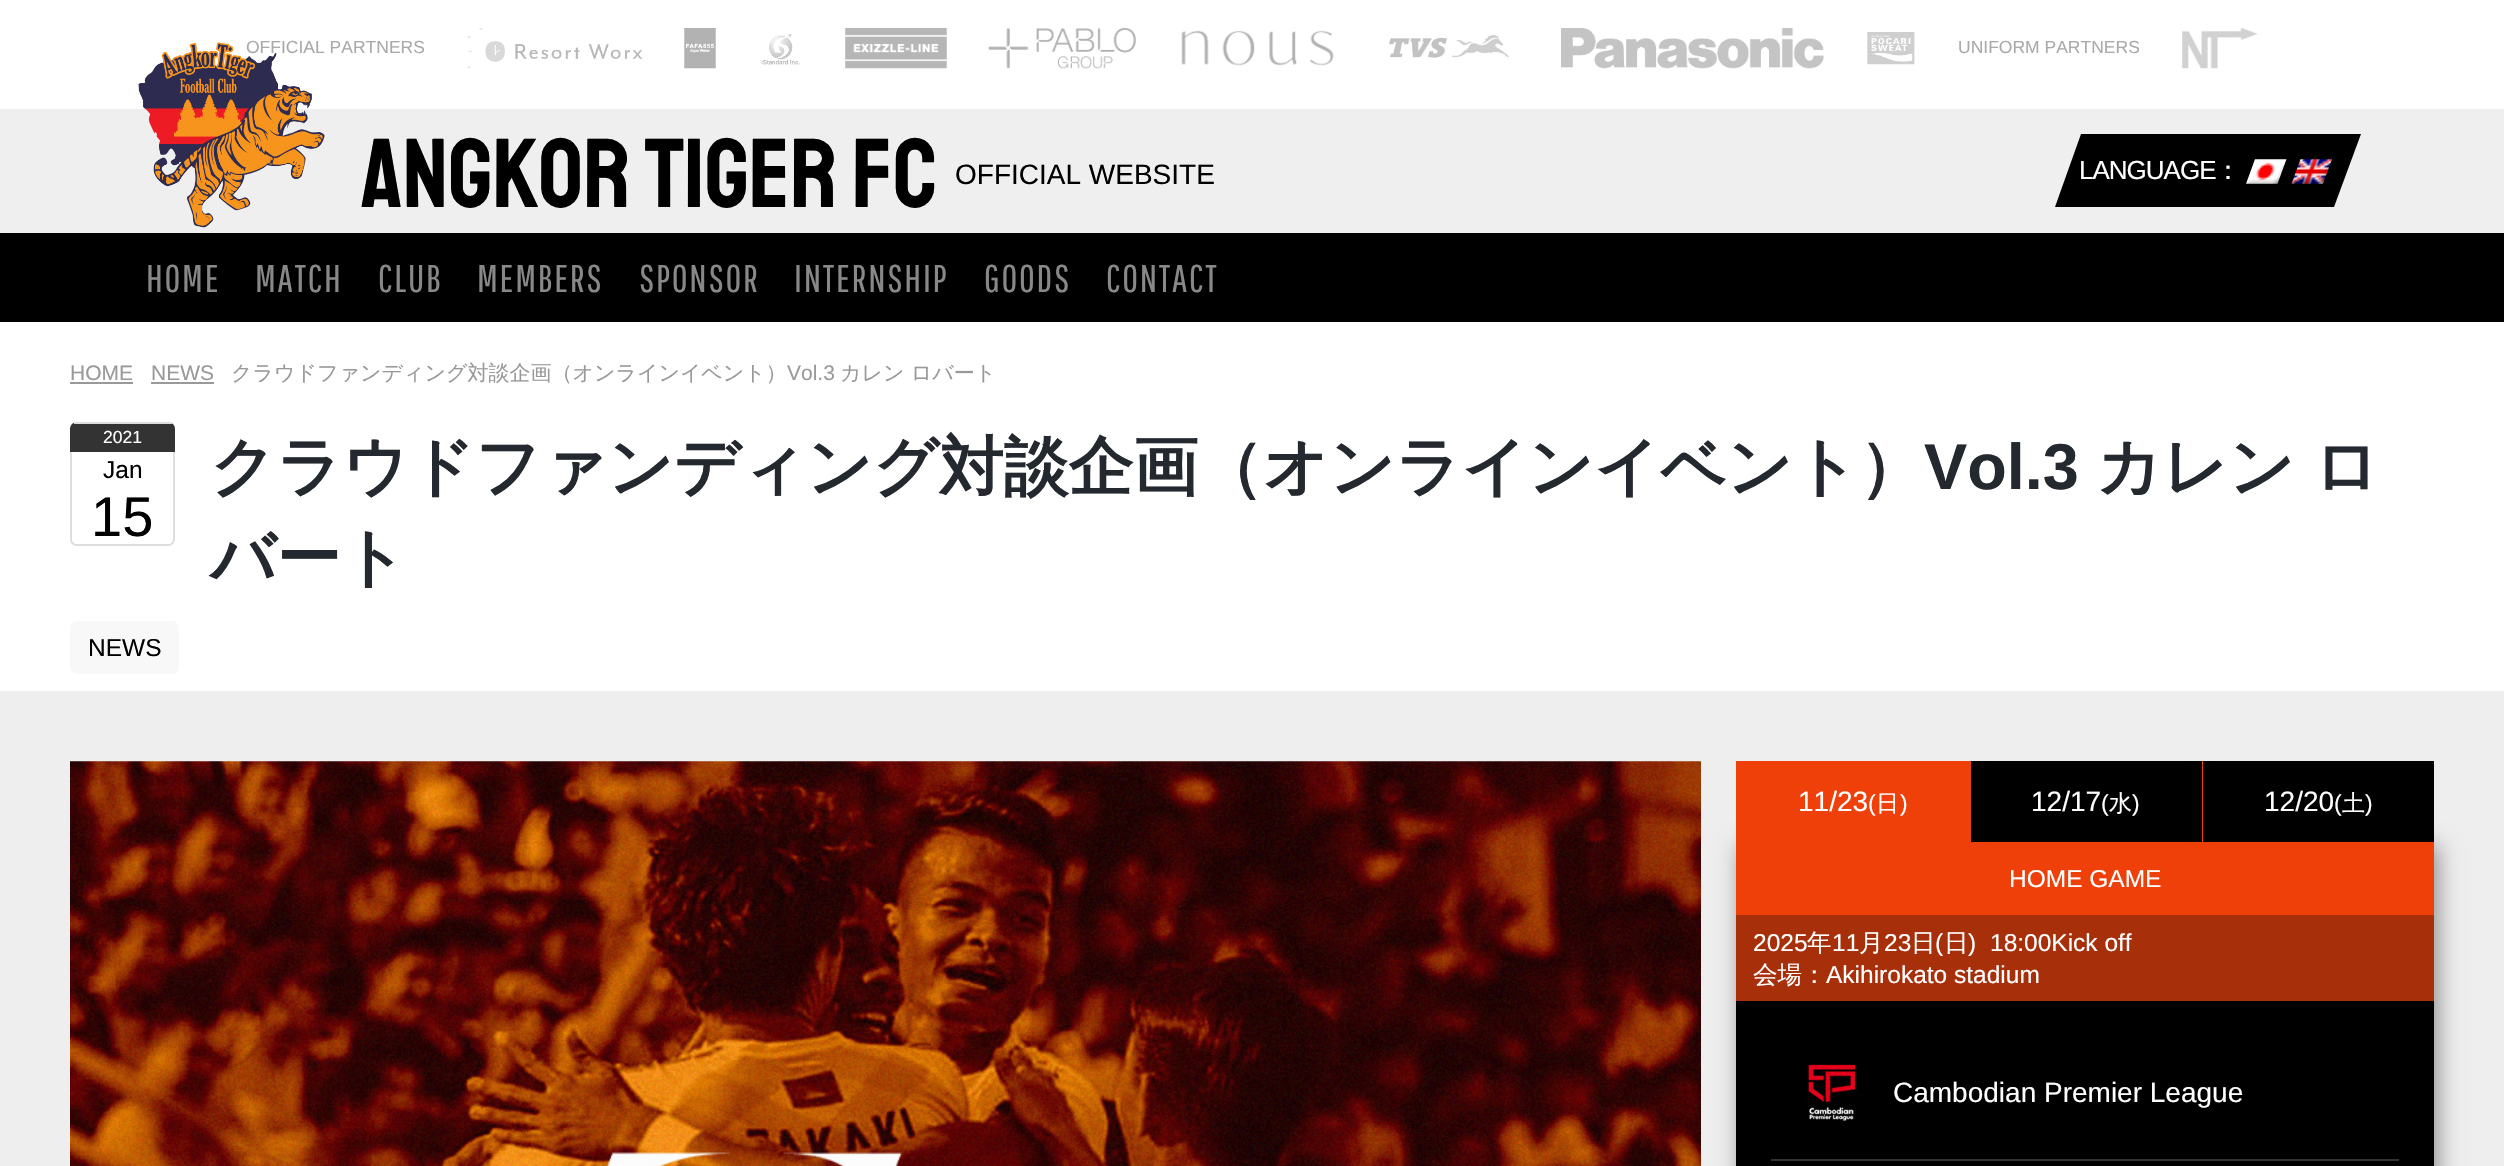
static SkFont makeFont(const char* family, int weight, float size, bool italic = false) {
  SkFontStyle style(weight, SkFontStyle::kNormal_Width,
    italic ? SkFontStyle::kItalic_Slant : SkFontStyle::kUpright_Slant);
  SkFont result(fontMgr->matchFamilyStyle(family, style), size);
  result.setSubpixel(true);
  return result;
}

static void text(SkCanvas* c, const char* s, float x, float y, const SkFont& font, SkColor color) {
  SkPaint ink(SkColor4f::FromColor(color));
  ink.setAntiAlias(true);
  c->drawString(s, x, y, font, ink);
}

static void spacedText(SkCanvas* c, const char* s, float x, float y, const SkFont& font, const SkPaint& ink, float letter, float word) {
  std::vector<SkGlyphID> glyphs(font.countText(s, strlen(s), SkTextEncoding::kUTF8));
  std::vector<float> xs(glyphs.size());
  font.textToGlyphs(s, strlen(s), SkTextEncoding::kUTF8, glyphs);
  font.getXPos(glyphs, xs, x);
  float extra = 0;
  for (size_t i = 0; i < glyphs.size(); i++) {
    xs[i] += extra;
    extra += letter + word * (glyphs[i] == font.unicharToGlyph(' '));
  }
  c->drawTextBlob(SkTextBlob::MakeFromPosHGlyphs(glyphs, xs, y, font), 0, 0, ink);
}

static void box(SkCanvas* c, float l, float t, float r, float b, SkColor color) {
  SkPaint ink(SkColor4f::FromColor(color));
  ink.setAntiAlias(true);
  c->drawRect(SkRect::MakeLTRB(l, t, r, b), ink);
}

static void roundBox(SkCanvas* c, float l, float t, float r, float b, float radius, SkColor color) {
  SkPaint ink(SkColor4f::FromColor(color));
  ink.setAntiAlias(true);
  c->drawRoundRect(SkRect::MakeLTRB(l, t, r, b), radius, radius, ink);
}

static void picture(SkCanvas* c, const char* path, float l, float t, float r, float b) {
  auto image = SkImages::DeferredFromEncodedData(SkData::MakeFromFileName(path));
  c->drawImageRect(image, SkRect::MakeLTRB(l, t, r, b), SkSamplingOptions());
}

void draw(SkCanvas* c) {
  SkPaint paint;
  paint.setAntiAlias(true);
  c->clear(0xffffffff);
  SkFont face1 = makeFont("Liberation Sans", 400, 17.5f);
  text(c, "OFFICIAL PARTNERS", 246, 53, face1, 0xffaaaaaa);
  picture(c, "img_01.png", 467, 28, 643, 68);
  picture(c, "img_02.png", 684, 28, 716, 69);
  picture(c, "img_03.png", 761, 34, 800, 65);
  picture(c, "img_04.png", 845, 28, 947, 69);
  picture(c, "img_05.png", 988, 28, 1136, 69);
  picture(c, "img_06.png", 1181, 30, 1334, 66);
  picture(c, "img_07.png", 1389, 35, 1509, 58);
  picture(c, "img_08.png", 1561, 28, 1824, 69);
  picture(c, "img_09.png", 1867, 32, 1915, 65);
  text(c, "UNIFORM PARTNERS", 1958, 53, face1, 0xffaaaaaa);
  picture(c, "img_10.png", 2182, 28, 2258, 69);
  box(c, 0, 109, 2504, 233, 0xffefefef);
  picture(c, "img_11.png", 138, 42, 325, 228);
  SkFont face2 = makeFont("Staatliches", 400, 98);
  text(c, "Angkor Tiger FC", 361, 207, face2, 0xff000000);
  SkFont face3 = makeFont("Liberation Sans", 400, 28);
  text(c, "OFFICIAL WEBSITE", 955, 184, face3, 0xff000000);
  paint.setColor(0xff000000);
  c->drawPath(SkPathBuilder().moveTo(2081, 134).lineTo(2361, 134).lineTo(2334, 207).lineTo(2055, 207).close().detach(), paint);
  SkFont face4 = makeFont("Liberation Sans", 400, 26);
  paint.setColor(0xffffffff);
  spacedText(c, "LANGUAGE", 2079, 179, face4, paint, -1, 0);
  SkFont face5 = makeFont("WenQuanYi Zen Hei", 500, 26);
  spacedText(c, "：", 2215, 179, face5, paint, -2, 0);
  picture(c, "img_12.png", 2246, 159, 2287, 184);
  picture(c, "img_13.png", 2291, 159, 2332, 184);
  box(c, 0, 233, 2504, 322, 0xff000000);
  SkFont face6 = makeFont("Pathway Gothic One", 400, 38.5f);
  paint.setColor(0xff888888);
  spacedText(c, "HOME", 146, 292, face6, paint, 1.75f, 0);
  spacedText(c, "MATCH", 255, 292, face6, paint, 1.75f, 0);
  spacedText(c, "CLUB", 378, 292, face6, paint, 1.75f, 0);
  spacedText(c, "MEMBERS", 477, 292, face6, paint, 1.75f, 0);
  spacedText(c, "SPONSOR", 639, 292, face6, paint, 1.75f, 0);
  spacedText(c, "INTERNSHIP", 794, 292, face6, paint, 1.75f, 0);
  spacedText(c, "GOODS", 984, 292, face6, paint, 1.75f, 0);
  spacedText(c, "CONTACT", 1106, 292, face6, paint, 1.75f, 0);
  SkFont face7 = makeFont("Liberation Sans", 400, 21);
  text(c, "HOME", 70, 380, face7, 0xff999999);
  box(c, 70, 382, 133, 384, 0xff999999);
  text(c, "NEWS", 151, 380, face7, 0xff999999);
  box(c, 151, 382, 214, 384, 0xff999999);
  SkFont face8 = makeFont("WenQuanYi Zen Hei", 500, 21);
  text(c, "クラウドファンディング対談企画（オンラインイベント）", 231, 380, face8, 0xff999999);
  text(c, "Vol.3", 787, 380, face7, 0xff999999);
  text(c, "カレン ロバート", 840, 380, face8, 0xff999999);
  paint.setColor(0xff333333);
  c->drawPath(SkPathBuilder().moveTo(77, 422).lineTo(168, 422).cubicTo(172, 422, 175, 425, 175, 429).lineTo(175, 452).lineTo(70, 452).lineTo(70, 429).cubicTo(70, 425, 73, 422, 77, 422).close().detach(), paint);
  box(c, 74, 422, 172, 424, 0xffdddddd);
  text(c, "2021", 103, 443, face1, 0xffffffff);
  box(c, 173, 452, 175, 488, 0xffdddddd);
  box(c, 70, 452, 72, 488, 0xffdddddd);
  SkFont face9 = makeFont("Liberation Sans", 400, 24.5f);
  text(c, "Jan", 103, 478, face9, 0xff000000);
  paint.setColor(0xffdddddd);
  c->drawPath(SkPathBuilder(SkPathFillType::kEvenOdd).moveTo(70, 488).lineTo(175, 488).lineTo(175, 539).cubicTo(175, 543, 172, 546, 168, 546).lineTo(77, 546).cubicTo(73, 546, 70, 543, 70, 539).close().moveTo(72, 488).lineTo(173, 488).lineTo(173, 539).cubicTo(173, 542, 171, 544, 168, 544).lineTo(77, 544).cubicTo(74, 544, 72, 542, 72, 539).close().detach(), paint);
  SkFont face10 = makeFont("Liberation Sans", 400, 56);
  text(c, "15", 91, 536, face10, 0xff000000);
  SkFont face11 = makeFont("WenQuanYi Zen Hei", 700, 64.75f);
  text(c, "クラウドファンディング対談企画（オンラインイベント）", 210, 489, face11, 0xff24282f);
  SkFont face12 = makeFont("Liberation Sans", 700, 64.75f);
  text(c, "Vol.3", 1924, 489, face12, 0xff24282f);
  paint.setColor(0xff24282f);
  spacedText(c, "カレン ロ", 2096, 489, face11, paint, 0, -1);
  text(c, "バート", 210, 580, face11, 0xff24282f);
  roundBox(c, 70, 621, 179, 674, 7, 0xfff8f8f8);
  text(c, "NEWS", 88, 656, face9, 0xff000000);
  box(c, 0, 691, 2504, 1166, 0xffeeeeee);
  picture(c, "img_14.png", 70, 761, 1701, 1166);
  paint.setColor(0x66000000);
  paint.setMaskFilter(SkMaskFilter::MakeBlur(kNormal_SkBlurStyle, 10.5f));
  c->drawRect(SkRect::MakeLTRB(1740, 845, 2438, 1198), paint);
  paint.setMaskFilter(nullptr);
  box(c, 1736, 761, 1971, 842, 0xffef400a);
  text(c, "11/23", 1798, 811, face3, 0xffffffff);
  SkFont face13 = makeFont("Liberation Sans", 400, 23);
  text(c, "(", 1868, 811, face13, 0xffffffff);
  SkFont face14 = makeFont("WenQuanYi Zen Hei", 500, 23);
  text(c, "日", 1876, 811, face14, 0xffffffff);
  text(c, ")", 1900, 811, face13, 0xffffffff);
  box(c, 1971, 761, 2202, 842, 0xff000000);
  box(c, 2202, 761, 2203, 842, 0xffef400a);
  text(c, "12/17", 2031, 811, face3, 0xffffffff);
  text(c, "(", 2101, 811, face13, 0xffffffff);
  text(c, "水", 2109, 811, face14, 0xffffffff);
  text(c, ")", 2132, 811, face13, 0xffffffff);
  box(c, 2203, 761, 2434, 842, 0xff000000);
  text(c, "12/20", 2264, 811, face3, 0xffffffff);
  text(c, "(", 2334, 811, face13, 0xffffffff);
  text(c, "土", 2342, 811, face14, 0xffffffff);
  text(c, ")", 2365, 811, face13, 0xffffffff);
  box(c, 1736, 1001, 2434, 1166, 0xff000000);
  box(c, 1736, 842, 2434, 915, 0xffef400a);
  text(c, "HOME GAME", 2009, 887, face9, 0xffffffff);
  box(c, 1736, 915, 2434, 1001, 0xffa72f0a);
  text(c, "2025", 1753, 951, face9, 0xffffffff);
  SkFont face15 = makeFont("WenQuanYi Zen Hei", 500, 24.5f);
  text(c, "年", 1807, 951, face15, 0xffffffff);
  text(c, "11", 1832, 951, face9, 0xffffffff);
  text(c, "月", 1859, 951, face15, 0xffffffff);
  text(c, "23", 1884, 951, face9, 0xffffffff);
  text(c, "日", 1911, 951, face15, 0xffffffff);
  text(c, "(", 1935, 951, face9, 0xffffffff);
  text(c, "日", 1944, 951, face15, 0xffffffff);
  text(c, ")", 1968, 951, face9, 0xffffffff);
  text(c, "18:00Kick off", 1990, 951, face9, 0xffffffff);
  text(c, "会場：", 1753, 983, face15, 0xffffffff);
  text(c, "Akihirokato stadium", 1826, 983, face9, 0xffffffff);
  box(c, 1771, 1159, 2399, 1161, 0xff333333);
  picture(c, "img_15.png", 1808, 1064, 1855, 1121);
  text(c, "Cambodian Premier League", 1893, 1102, face3, 0xffffffff);
}
